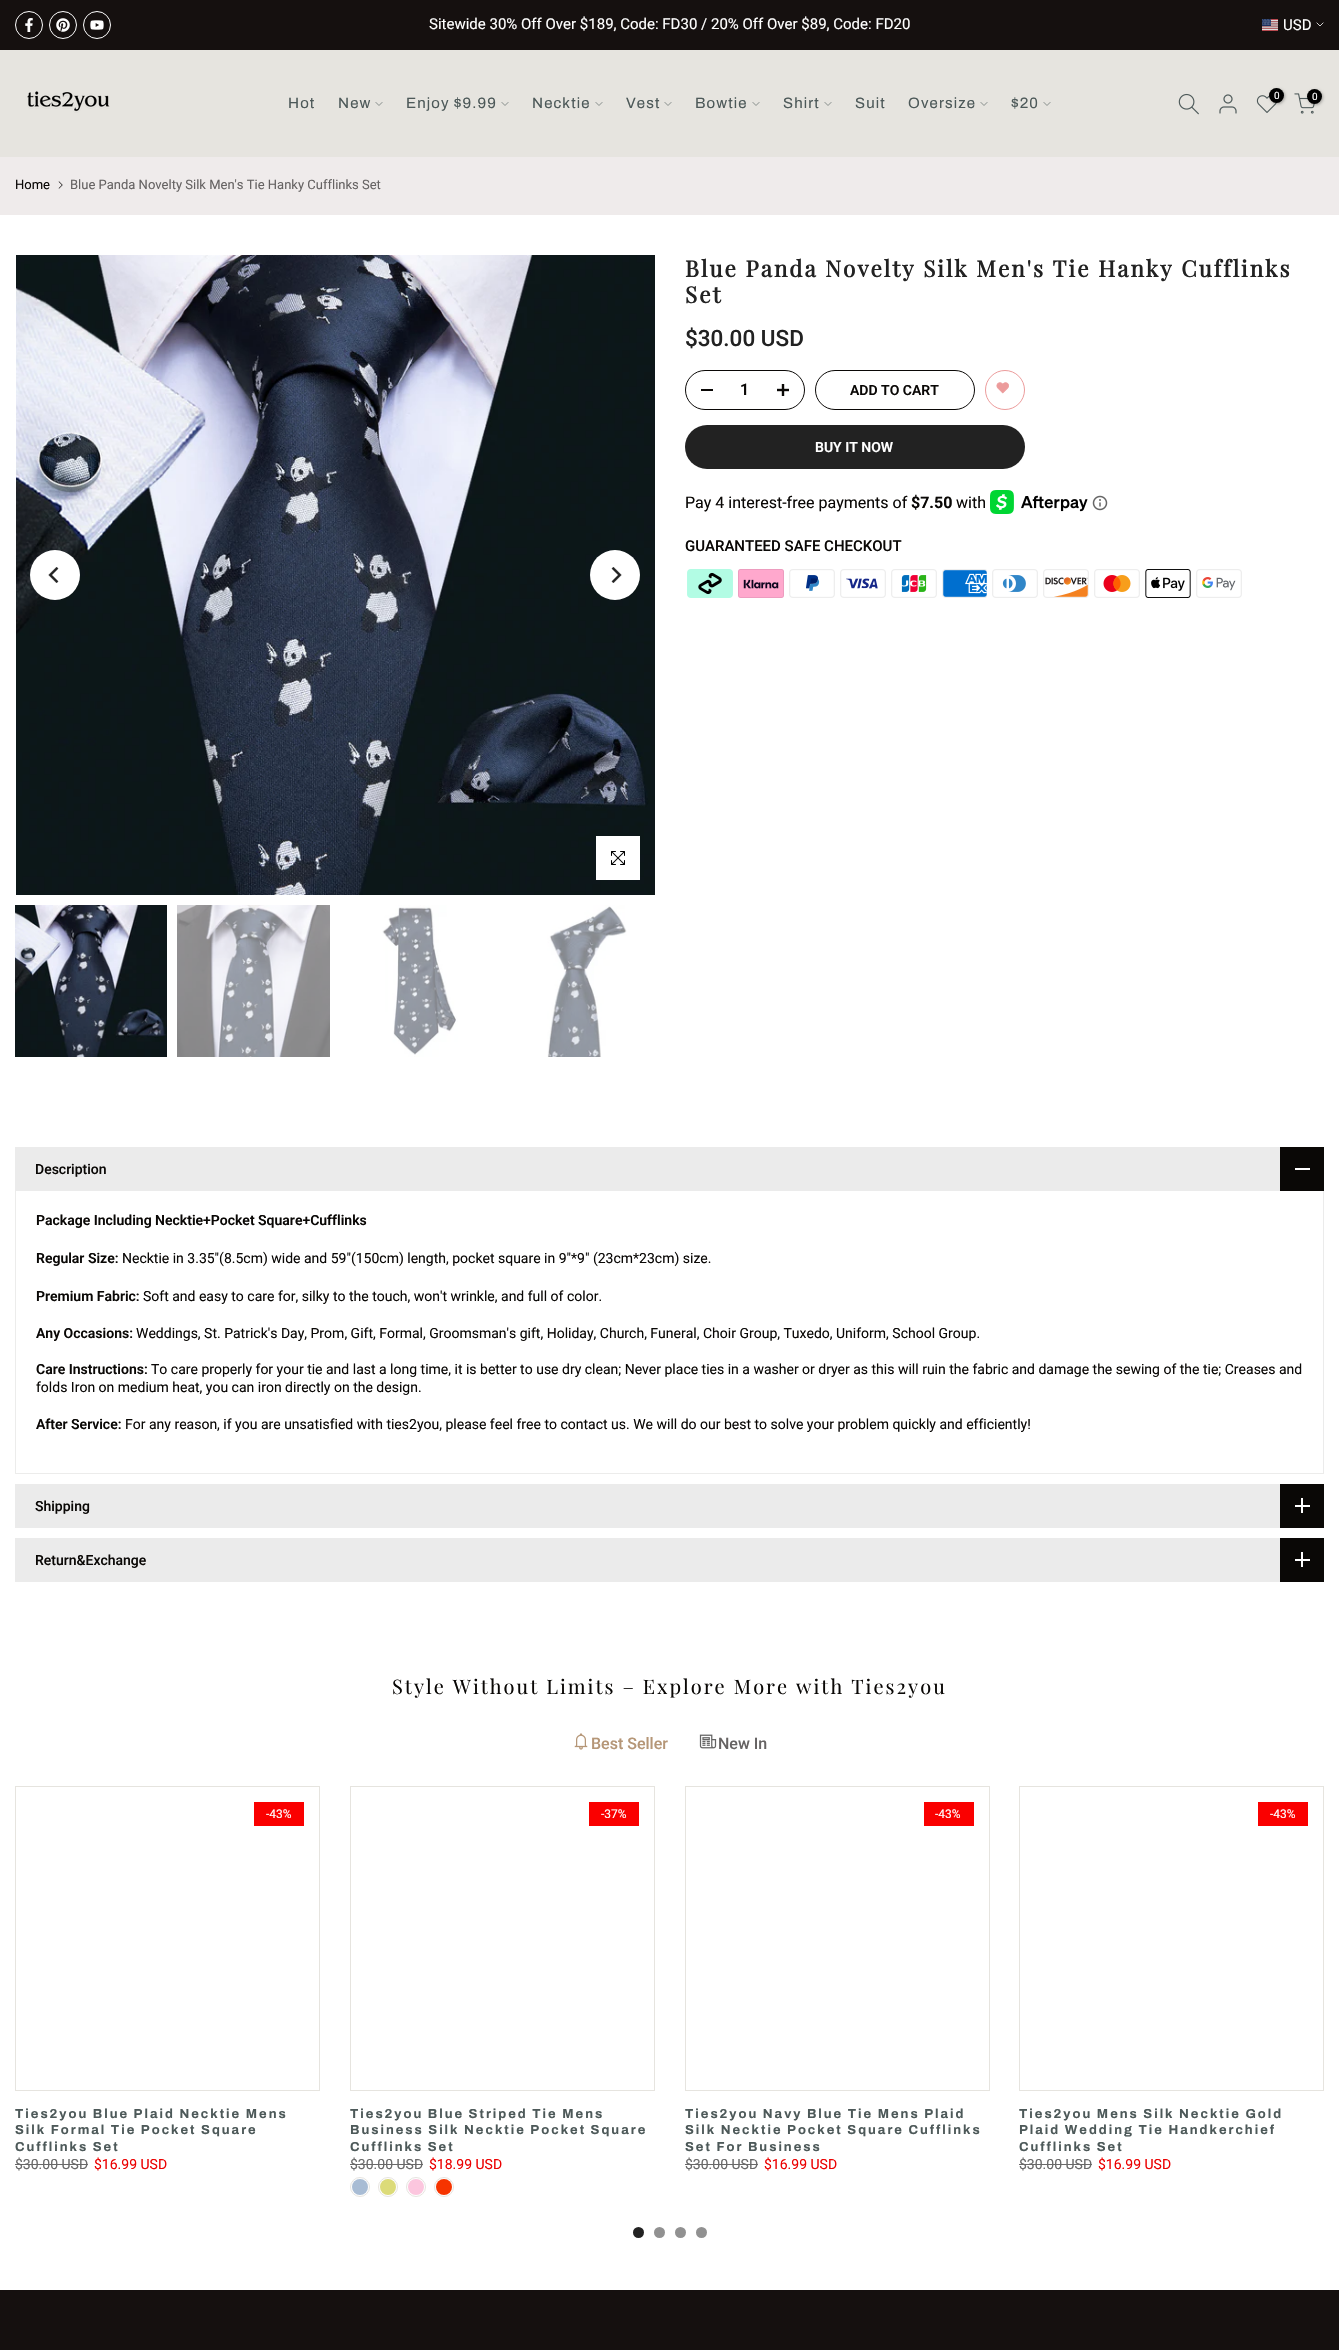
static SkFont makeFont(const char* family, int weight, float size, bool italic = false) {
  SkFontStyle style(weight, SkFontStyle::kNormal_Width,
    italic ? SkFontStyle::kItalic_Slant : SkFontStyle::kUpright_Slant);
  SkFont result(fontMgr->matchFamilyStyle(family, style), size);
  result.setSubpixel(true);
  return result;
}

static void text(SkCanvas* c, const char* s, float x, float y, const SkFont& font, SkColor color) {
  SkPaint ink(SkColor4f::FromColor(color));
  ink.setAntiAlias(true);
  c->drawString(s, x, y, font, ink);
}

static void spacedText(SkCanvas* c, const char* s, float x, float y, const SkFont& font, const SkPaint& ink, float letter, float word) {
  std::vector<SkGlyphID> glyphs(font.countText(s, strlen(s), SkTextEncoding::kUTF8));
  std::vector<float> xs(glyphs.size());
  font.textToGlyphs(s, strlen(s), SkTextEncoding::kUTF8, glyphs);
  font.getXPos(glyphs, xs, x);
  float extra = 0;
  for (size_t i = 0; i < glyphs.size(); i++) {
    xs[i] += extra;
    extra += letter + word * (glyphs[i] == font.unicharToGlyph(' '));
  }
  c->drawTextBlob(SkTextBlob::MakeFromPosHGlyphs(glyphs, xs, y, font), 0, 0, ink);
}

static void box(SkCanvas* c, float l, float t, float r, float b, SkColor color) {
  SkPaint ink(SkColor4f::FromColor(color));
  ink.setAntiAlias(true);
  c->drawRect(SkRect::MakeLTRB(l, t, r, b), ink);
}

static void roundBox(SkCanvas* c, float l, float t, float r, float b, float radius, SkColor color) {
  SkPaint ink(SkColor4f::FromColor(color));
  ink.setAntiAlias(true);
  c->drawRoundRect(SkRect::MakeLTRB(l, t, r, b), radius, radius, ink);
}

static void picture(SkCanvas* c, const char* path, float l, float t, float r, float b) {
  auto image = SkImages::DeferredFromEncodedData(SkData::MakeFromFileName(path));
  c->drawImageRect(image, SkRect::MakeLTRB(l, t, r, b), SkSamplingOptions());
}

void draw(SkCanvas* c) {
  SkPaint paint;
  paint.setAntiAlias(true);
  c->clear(0xffffffff);
  box(c, 0, 0, 1339, 50, 0xff15100f);
  paint.setStyle(SkPaint::kStroke_Style);
  paint.setStrokeWidth(1);
  paint.setColor(0xffffffff);
  c->drawCircle(29, 25, 13.5f, paint);
  picture(c, "img_01.png", 25, 18, 33, 32);
  c->drawCircle(63, 25, 13.5f, paint);
  picture(c, "img_02.png", 56, 18, 70, 32);
  c->drawCircle(97, 25, 13.5f, paint);
  picture(c, "img_03.png", 90, 20, 104, 30);
  SkFont face1 = makeFont("Roboto", 400, 15);
  text(c, "Sitewide 30% Off Over $189, Code: FD30 / 20% Off Over $89, Code: FD20", 429, 29, face1, 0xffffffff);
  picture(c, "img_04.png", 1262, 19, 1278, 31);
  text(c, "USD", 1283, 30, face1, 0xffffffff);
  paint.setStrokeWidth(0.8f);
  paint.setStrokeCap(SkPaint::kSquare_Cap);
  c->drawPath(SkPathBuilder().moveTo(1323, 23).lineTo(1320, 26).lineTo(1317, 23).detach(), paint);
  box(c, 0, 50, 1339, 157, 0xffe6e4df);
  picture(c, "img_05.png", 27, 91, 110, 113);
  picture(c, "img_06.png", 1178, 93, 1199, 115);
  picture(c, "img_07.png", 1219, 94, 1237, 114);
  picture(c, "img_08.png", 1256, 95, 1277, 113);
  paint.setStyle(SkPaint::kFill_Style);
  paint.setColor(0x4d000000);
  paint.setMaskFilter(SkMaskFilter::MakeBlur(kNormal_SkBlurStyle, 1.5f));
  c->drawRoundRect(SkRect::MakeLTRB(1270, 89, 1285, 104), 7.5f, 7.5f, paint);
  paint.setMaskFilter(nullptr);
  paint.setColor(0xff000000);
  c->drawCircle(1276.5f, 95.5f, 7.5f, paint);
  SkFont face2 = makeFont("Roboto", 400, 10);
  text(c, "0", 1274, 99, face2, 0xffffffff);
  picture(c, "img_09.png", 1294, 93, 1315, 114);
  paint.setColor(0x4d000000);
  paint.setMaskFilter(SkMaskFilter::MakeBlur(kNormal_SkBlurStyle, 1.5f));
  c->drawRoundRect(SkRect::MakeLTRB(1308, 90, 1323, 105), 7.5f, 7.5f, paint);
  paint.setMaskFilter(nullptr);
  paint.setColor(0xff000000);
  c->drawCircle(1314.5f, 96.5f, 7.5f, paint);
  text(c, "0", 1312, 100, face2, 0xffffffff);
  SkFont face3 = makeFont("Archivo", 400, 15);
  paint.setColor(0xff4d5959);
  spacedText(c, "Hot", 288, 108, face3, paint, 1.1f, 0);
  spacedText(c, "New", 338, 108, face3, paint, 1.1f, 0);
  paint.setStyle(SkPaint::kStroke_Style);
  paint.setColor(0xff6c7574);
  c->drawPath(SkPathBuilder().moveTo(382, 102.5f).lineTo(379, 105.5f).lineTo(376, 102.5f).detach(), paint);
  paint.setStyle(SkPaint::kFill_Style);
  paint.setColor(0xff4d5959);
  spacedText(c, "Enjoy $9.99", 406, 108, face3, paint, 1.1f, 0);
  paint.setStyle(SkPaint::kStroke_Style);
  paint.setColor(0xff6c7574);
  c->drawPath(SkPathBuilder().moveTo(508, 102.5f).lineTo(505, 105.5f).lineTo(502, 102.5f).detach(), paint);
  paint.setStyle(SkPaint::kFill_Style);
  paint.setColor(0xff4d5959);
  spacedText(c, "Necktie", 532, 108, face3, paint, 1.1f, 0);
  paint.setStyle(SkPaint::kStroke_Style);
  paint.setColor(0xff6c7574);
  c->drawPath(SkPathBuilder().moveTo(602, 102.5f).lineTo(599, 105.5f).lineTo(596, 102.5f).detach(), paint);
  paint.setStyle(SkPaint::kFill_Style);
  paint.setColor(0xff4d5959);
  spacedText(c, "Vest", 626, 108, face3, paint, 1.1f, 0);
  paint.setStyle(SkPaint::kStroke_Style);
  paint.setColor(0xff6c7574);
  c->drawPath(SkPathBuilder().moveTo(671, 102.5f).lineTo(668, 105.5f).lineTo(665, 102.5f).detach(), paint);
  paint.setStyle(SkPaint::kFill_Style);
  paint.setColor(0xff4d5959);
  spacedText(c, "Bowtie", 695, 108, face3, paint, 1.1f, 0);
  paint.setStyle(SkPaint::kStroke_Style);
  paint.setColor(0xff6c7574);
  c->drawPath(SkPathBuilder().moveTo(759, 102.5f).lineTo(756, 105.5f).lineTo(753, 102.5f).detach(), paint);
  paint.setStyle(SkPaint::kFill_Style);
  paint.setColor(0xff4d5959);
  spacedText(c, "Shirt", 783, 108, face3, paint, 1.1f, 0);
  paint.setStyle(SkPaint::kStroke_Style);
  paint.setColor(0xff6c7574);
  c->drawPath(SkPathBuilder().moveTo(831, 102.5f).lineTo(828, 105.5f).lineTo(825, 102.5f).detach(), paint);
  paint.setStyle(SkPaint::kFill_Style);
  paint.setColor(0xff4d5959);
  spacedText(c, "Suit", 855, 108, face3, paint, 1.1f, 0);
  spacedText(c, "Oversize", 908, 108, face3, paint, 1.1f, 0);
  paint.setStyle(SkPaint::kStroke_Style);
  paint.setColor(0xff6c7574);
  c->drawPath(SkPathBuilder().moveTo(987, 102.5f).lineTo(984, 105.5f).lineTo(981, 102.5f).detach(), paint);
  paint.setStyle(SkPaint::kFill_Style);
  paint.setColor(0xff4d5959);
  spacedText(c, "$20", 1011, 108, face3, paint, 1.1f, 0);
  paint.setStyle(SkPaint::kStroke_Style);
  paint.setColor(0xff6c7574);
  c->drawPath(SkPathBuilder().moveTo(1050, 102.5f).lineTo(1047, 105.5f).lineTo(1044, 102.5f).detach(), paint);
  box(c, 0, 157, 1339, 215, 0xffefebeb);
  SkFont face4 = makeFont("Roboto", 400, 13);
  text(c, "Home", 15, 189, face4, 0xff0a0806);
  picture(c, "img_10.png", 58, 181, 63, 189);
  text(c, "Blue Panda Novelty Silk Men's Tie Hanky Cufflinks Set", 70, 189, face4, 0xff666363);
  picture(c, "img_11.png", 16, 255, 655, 895);
  paint.setStyle(SkPaint::kFill_Style);
  paint.setColor(0xffffffff);
  c->drawCircle(55, 575, 25, paint);
  picture(c, "img_12.png", 48, 567, 59, 583);
  c->drawCircle(615, 575, 25, paint);
  picture(c, "img_13.png", 611, 567, 622, 583);
  box(c, 596, 836, 640, 880, 0xffffffff);
  picture(c, "img_14.png", 611, 851, 625, 865);
  picture(c, "img_15.png", 15, 905, 167, 1057);
  picture(c, "img_16.png", 177, 905, 330, 1057);
  picture(c, "img_17.png", 382, 905, 458, 1057);
  picture(c, "img_18.png", 547, 905, 627, 1057);
  SkFont face5 = makeFont("Playfair Display", 700, 22.5f);
  paint.setColor(0xff222222);
  spacedText(c, "Blue Panda Novelty Silk Men's Tie Hanky Cufflinks", 685, 277, face5, paint, 2, 0);
  spacedText(c, "Set", 685, 303, face5, paint, 2, 0);
  SkFont face6 = makeFont("Roboto", 500, 22.5f);
  text(c, "$30.00 USD", 685, 346, face6, 0xff222222);
  paint.setStyle(SkPaint::kStroke_Style);
  paint.setStrokeWidth(1);
  paint.setStrokeCap(SkPaint::kButt_Cap);
  paint.setColor(0xff0a0806);
  c->drawRoundRect(SkRect::MakeLTRB(685.5f, 370.5f, 804.5f, 409.5f), 19.5f, 19.5f, paint);
  box(c, 701, 389, 713, 391, 0xff0a0806);
  SkFont face7 = makeFont("Roboto", 600, 16);
  text(c, "1", 740, 395, face7, 0xff0a0806);
  picture(c, "img_19.png", 777, 384, 789, 396);
  c->drawRoundRect(SkRect::MakeLTRB(815.5f, 370.5f, 974.5f, 409.5f), 19.5f, 19.5f, paint);
  SkFont face8 = makeFont("Roboto", 600, 14);
  text(c, "ADD TO CART", 850, 395, face8, 0xff0a0806);
  paint.setColor(0xffec9b9b);
  c->drawCircle(1005, 390, 19.5f, paint);
  picture(c, "img_20.png", 996, 382, 1009, 394);
  roundBox(c, 685, 425, 1025, 469, 22, 0xff222222);
  text(c, "BUY IT NOW", 815, 452, face8, 0xffffffff);
  SkFont face9 = makeFont("Roboto", 400, 16);
  text(c, "Pay 4 interest-free payments of", 685, 508, face9, 0xff0a0806);
  SkFont face10 = makeFont("Roboto", 700, 16);
  text(c, "$7.50", 911, 508, face10, 0xff0a0806);
  text(c, "with", 956, 508, face9, 0xff0a0806);
  picture(c, "img_21.png", 990, 490, 1088, 514);
  picture(c, "img_22.png", 1092, 495, 1108, 511);
  SkFont face11 = makeFont("Roboto", 500, 15);
  text(c, "GUARANTEED SAFE CHECKOUT", 685, 551, face11, 0xff0a0806);
  picture(c, "img_23.png", 687, 569, 733, 598);
  picture(c, "img_24.png", 738, 569, 784, 598);
  picture(c, "img_25.png", 789, 569, 835, 598);
  picture(c, "img_26.png", 840, 569, 886, 598);
  picture(c, "img_27.png", 891, 569, 937, 598);
  picture(c, "img_28.png", 942, 569, 987, 598);
  picture(c, "img_29.png", 992, 569, 1038, 598);
  picture(c, "img_30.png", 1043, 569, 1089, 598);
  picture(c, "img_31.png", 1094, 569, 1140, 598);
  picture(c, "img_32.png", 1145, 569, 1191, 598);
  picture(c, "img_33.png", 1196, 569, 1242, 598);
  box(c, 15, 1147, 1280, 1191, 0xffebebeb);
  SkFont face12 = makeFont("Roboto", 500, 14);
  text(c, "Description", 35, 1174, face12, 0xff0a0806);
  box(c, 1280, 1147, 1324, 1191, 0xff0a0806);
  box(c, 1295, 1168, 1310, 1170, 0xffffffff);
  paint.setStyle(SkPaint::kFill_Style);
  paint.setColor(0xffebebeb);
  c->drawPath(SkPathBuilder().moveTo(1324, 1191).lineTo(1324, 1474).lineTo(1323, 1473).lineTo(1323, 1191).close().detach(), paint);
  paint.setColor(0x140a0806);
  c->drawPath(SkPathBuilder().moveTo(1324, 1474).lineTo(15, 1474).lineTo(16, 1473).lineTo(1323, 1473).close().detach(), paint);
  c->drawPath(SkPathBuilder().moveTo(15, 1474).lineTo(15, 1191).lineTo(16, 1191).lineTo(16, 1473).close().detach(), paint);
  text(c, "Package Including Necktie+Pocket Square+Cufflinks", 36, 1225, face8, 0xff0a0806);
  text(c, "Regular Size:", 36, 1263, face8, 0xff0a0806);
  SkFont face13 = makeFont("Roboto", 400, 14);
  text(c, "Necktie in 3.35\"(8.5cm) wide and 59\"(150cm) length, pocket square in 9\"*9\" (23cm*23cm) size.", 122, 1263, face13, 0xff0a0806);
  text(c, "Premium Fabric:", 36, 1301, face8, 0xff0a0806);
  text(c, "Soft and easy to care for, silky to the touch, won't wrinkle, and full of color.", 143, 1301, face13, 0xff0a0806);
  text(c, "Any Occasions:", 36, 1338, face8, 0xff0a0806);
  text(c, "Weddings, St. Patrick's Day, Prom, Gift, Formal, Groomsman's gift, Holiday, Church, Funeral, Choir Group, Tuxedo, Uniform, School Group.", 136, 1338, face13, 0xff0a0806);
  text(c, "Care Instructions:", 36, 1374, face8, 0xff0a0806);
  text(c, "To care properly for your tie and last a long time, it is better to use dry clean; Never place ties in a washer or dryer as this will ruin the fabric and damage the sewing of the tie; Creases and", 151, 1374, face13, 0xff0a0806);
  text(c, "folds Iron on medium heat, you can iron directly on the design.", 36, 1392, face13, 0xff0a0806);
  text(c, "After Service:", 36, 1429, face8, 0xff0a0806);
  text(c, "For any reason, if you are unsatisfied with ties2you, please feel free to contact us. We will do our best to solve your problem quickly and efficiently!", 125, 1429, face13, 0xff0a0806);
  box(c, 15, 1484, 1280, 1528, 0xffebebeb);
  text(c, "Shipping", 35, 1511, face12, 0xff0a0806);
  box(c, 1280, 1484, 1324, 1528, 0xff0a0806);
  box(c, 1301, 1498, 1303, 1513, 0xffffffff);
  box(c, 1295, 1505, 1310, 1507, 0xffffffff);
  box(c, 15, 1538, 1280, 1582, 0xffebebeb);
  text(c, "Return&Exchange", 35, 1565, face12, 0xff0a0806);
  box(c, 1280, 1538, 1324, 1582, 0xff0a0806);
  box(c, 1301, 1552, 1303, 1567, 0xffffffff);
  box(c, 1295, 1559, 1310, 1561, 0xffffffff);
  SkFont face14 = makeFont("Playfair Display", 400, 20);
  paint.setColor(0xff0a0806);
  spacedText(c, "Style Without Limits – Explore More with Ties2you", 392, 1694, face14, paint, 2, 0);
  picture(c, "img_34.png", 574, 1733, 588, 1750);
  SkFont face15 = makeFont("Roboto", 500, 16);
  text(c, "Best Seller", 591, 1749, face15, 0xffb59677);
  picture(c, "img_35.png", 699, 1734, 717, 1749);
  text(c, "New In", 718, 1749, face15, 0xff666363);
  paint.setStyle(SkPaint::kStroke_Style);
  paint.setColor(0xffe6e4df);
  c->drawRect(SkRect::MakeLTRB(15.5f, 1786.5f, 319.5f, 2090.5f), paint);
  box(c, 254, 1802, 304, 1826, 0xfffa0000);
  SkFont face16 = makeFont("Roboto", 400, 12);
  text(c, "-43%", 266, 1818, face16, 0xffffffff);
  SkFont face17 = makeFont("Archivo", 700, 13);
  paint.setStyle(SkPaint::kFill_Style);
  paint.setColor(0xff4d5959);
  spacedText(c, "Ties2you Blue Plaid Necktie Mens", 15, 2118, face17, paint, 2, 0);
  spacedText(c, "Silk Formal Tie Pocket Square", 15, 2134, face17, paint, 2, 0);
  spacedText(c, "Cufflinks Set", 15, 2151, face17, paint, 2, 0);
  text(c, "$30.00 USD", 15, 2169, face13, 0xff696969);
  box(c, 15, 2164, 88, 2165, 0xff696969);
  text(c, "$16.99 USD", 94, 2169, face13, 0xffec0101);
  paint.setStyle(SkPaint::kStroke_Style);
  paint.setColor(0xffe6e4df);
  c->drawRect(SkRect::MakeLTRB(350.5f, 1786.5f, 654.5f, 2090.5f), paint);
  box(c, 589, 1802, 639, 1826, 0xfffa0000);
  text(c, "-37%", 601, 1818, face16, 0xffffffff);
  paint.setStyle(SkPaint::kFill_Style);
  paint.setColor(0xff4d5959);
  spacedText(c, "Ties2you Blue Striped Tie Mens", 350, 2118, face17, paint, 2, 0);
  spacedText(c, "Business Silk Necktie Pocket Square", 350, 2134, face17, paint, 2, 0);
  spacedText(c, "Cufflinks Set", 350, 2151, face17, paint, 2, 0);
  text(c, "$30.00 USD", 350, 2169, face13, 0xff696969);
  box(c, 350, 2164, 423, 2165, 0xff696969);
  text(c, "$18.99 USD", 429, 2169, face13, 0xffec0101);
  paint.setStyle(SkPaint::kStroke_Style);
  paint.setColor(0xffe6e4df);
  c->drawCircle(360, 2187, 9.5f, paint);
  paint.setStyle(SkPaint::kFill_Style);
  paint.setColor(0xffa8bcd4);
  c->drawCircle(360, 2187, 8, paint);
  paint.setStyle(SkPaint::kStroke_Style);
  paint.setColor(0xffe6e4df);
  c->drawCircle(388, 2187, 9.5f, paint);
  paint.setStyle(SkPaint::kFill_Style);
  paint.setColor(0xffdcdb79);
  c->drawCircle(388, 2187, 8, paint);
  paint.setStyle(SkPaint::kStroke_Style);
  paint.setColor(0xffe6e4df);
  c->drawCircle(416, 2187, 9.5f, paint);
  paint.setStyle(SkPaint::kFill_Style);
  paint.setColor(0xfffcc6de);
  c->drawCircle(416, 2187, 8, paint);
  paint.setStyle(SkPaint::kStroke_Style);
  paint.setColor(0xffe6e4df);
  c->drawCircle(444, 2187, 9.5f, paint);
  paint.setStyle(SkPaint::kFill_Style);
  paint.setColor(0xfff63400);
  c->drawCircle(444, 2187, 8, paint);
  paint.setStyle(SkPaint::kStroke_Style);
  paint.setColor(0xffe6e4df);
  c->drawRect(SkRect::MakeLTRB(685.5f, 1786.5f, 989.5f, 2090.5f), paint);
  box(c, 924, 1802, 974, 1826, 0xfffa0000);
  text(c, "-43%", 935, 1818, face16, 0xffffffff);
  paint.setStyle(SkPaint::kFill_Style);
  paint.setColor(0xff4d5959);
  spacedText(c, "Ties2you Navy Blue Tie Mens Plaid", 685, 2118, face17, paint, 2, 0);
  spacedText(c, "Silk Necktie Pocket Square Cufflinks", 685, 2134, face17, paint, 2, 0);
  spacedText(c, "Set For Business", 685, 2151, face17, paint, 2, 0);
  text(c, "$30.00 USD", 685, 2169, face13, 0xff696969);
  box(c, 685, 2164, 758, 2165, 0xff696969);
  text(c, "$16.99 USD", 764, 2169, face13, 0xffec0101);
  paint.setStyle(SkPaint::kStroke_Style);
  paint.setColor(0xffe6e4df);
  c->drawRect(SkRect::MakeLTRB(1019.5f, 1786.5f, 1323.5f, 2090.5f), paint);
  box(c, 1258, 1802, 1308, 1826, 0xfffa0000);
  text(c, "-43%", 1270, 1818, face16, 0xffffffff);
  paint.setStyle(SkPaint::kFill_Style);
  paint.setColor(0xff4d5959);
  spacedText(c, "Ties2you Mens Silk Necktie Gold", 1019, 2118, face17, paint, 2, 0);
  spacedText(c, "Plaid Wedding Tie Handkerchief", 1019, 2134, face17, paint, 2, 0);
  spacedText(c, "Cufflinks Set", 1019, 2151, face17, paint, 2, 0);
  text(c, "$30.00 USD", 1019, 2169, face13, 0xff696969);
  box(c, 1019, 2164, 1092, 2165, 0xff696969);
  text(c, "$16.99 USD", 1098, 2169, face13, 0xffec0101);
  paint.setColor(0xff222222);
  c->drawCircle(638.5f, 2232.5f, 5.5f, paint);
  paint.setColor(0xff919191);
  c->drawCircle(659.5f, 2232.5f, 5.5f, paint);
  c->drawCircle(680.5f, 2232.5f, 5.5f, paint);
  c->drawCircle(701.5f, 2232.5f, 5.5f, paint);
  box(c, 0, 2290, 1339, 2350, 0xff15100f);
}
